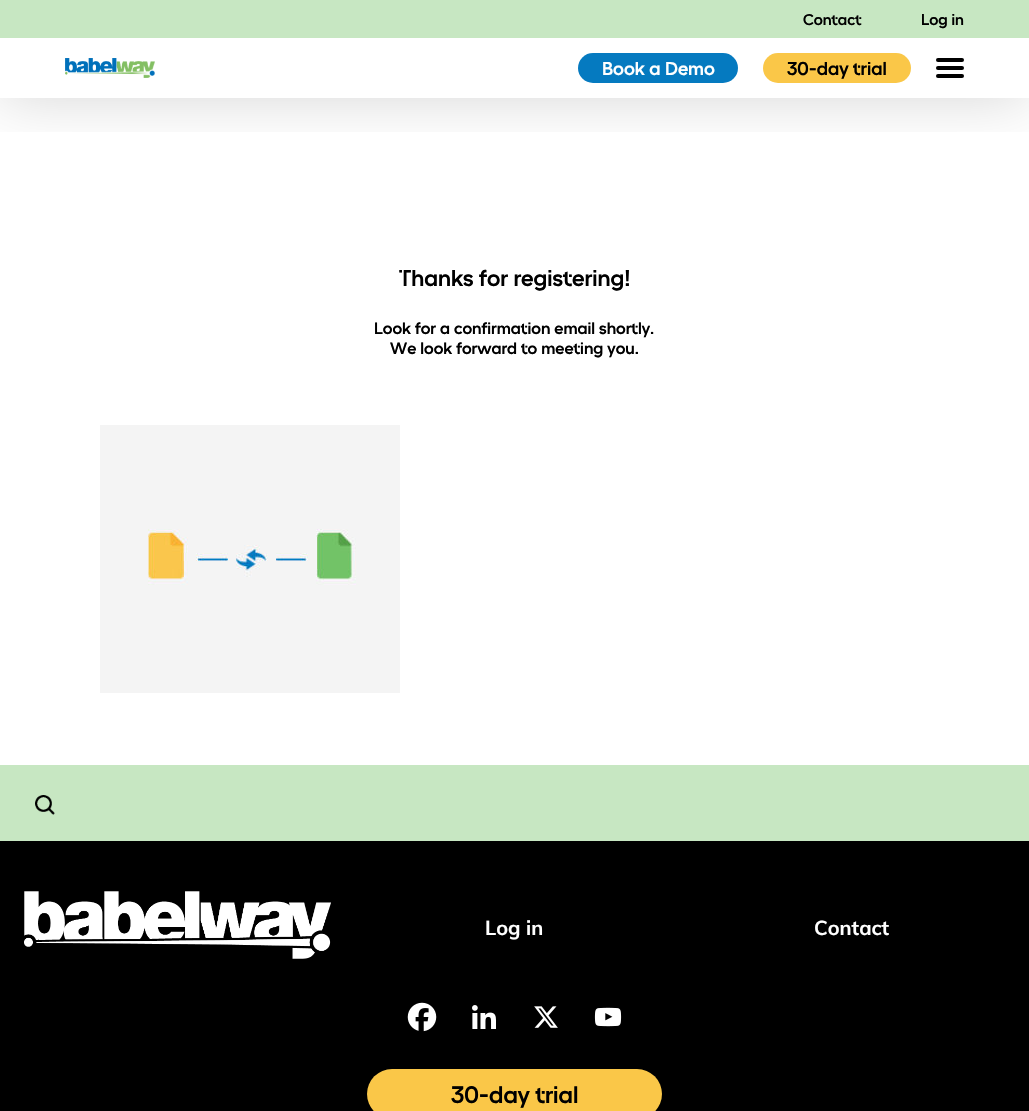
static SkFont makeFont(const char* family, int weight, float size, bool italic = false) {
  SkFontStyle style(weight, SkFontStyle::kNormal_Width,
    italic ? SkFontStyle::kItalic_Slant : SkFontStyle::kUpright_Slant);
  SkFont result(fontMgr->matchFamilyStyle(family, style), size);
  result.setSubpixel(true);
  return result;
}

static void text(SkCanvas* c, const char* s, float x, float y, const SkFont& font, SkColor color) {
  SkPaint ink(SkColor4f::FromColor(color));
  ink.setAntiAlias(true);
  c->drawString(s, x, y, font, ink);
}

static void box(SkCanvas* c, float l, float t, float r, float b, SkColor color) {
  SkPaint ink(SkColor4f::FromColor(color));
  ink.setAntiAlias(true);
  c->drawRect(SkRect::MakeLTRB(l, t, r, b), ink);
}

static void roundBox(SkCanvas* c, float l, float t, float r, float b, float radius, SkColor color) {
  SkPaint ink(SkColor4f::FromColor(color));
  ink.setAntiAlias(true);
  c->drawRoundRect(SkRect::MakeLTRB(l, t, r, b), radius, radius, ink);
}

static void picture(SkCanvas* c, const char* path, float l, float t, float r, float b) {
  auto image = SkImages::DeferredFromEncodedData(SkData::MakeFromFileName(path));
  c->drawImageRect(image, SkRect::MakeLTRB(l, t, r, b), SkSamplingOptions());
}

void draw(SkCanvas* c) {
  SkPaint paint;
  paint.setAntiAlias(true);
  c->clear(0xffffffff);
  c->save();
  c->clipRect(SkRect::MakeLTRB(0, 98, 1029, 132));
  paint.setColor(0x29000000);
  paint.setMaskFilter(SkMaskFilter::MakeBlur(kNormal_SkBlurStyle, 30));
  c->drawRect(SkRect::MakeLTRB(0, 0, 1029, 98), paint);
  paint.setMaskFilter(nullptr);
  c->restore();
  box(c, 0, 0, 1029, 38, 0xffc7e7c2);
  SkFont face1 = makeFont("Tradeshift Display", 500, 15);
  text(c, "Contact", 803, 25, face1, 0xff000000);
  text(c, "Log in", 921, 25, face1, 0xff000000);
  picture(c, "img_01.png", 65, 58, 155, 78);
  roundBox(c, 578, 53, 738, 83, 15, 0xff057ac0);
  SkFont face2 = makeFont("Tradeshift Display", 500, 18);
  text(c, "Book a Demo", 602, 75, face2, 0xffffffff);
  roundBox(c, 763, 53, 911, 83, 15, 0xfffac748);
  text(c, "30-day trial", 787, 75, face2, 0xff000000);
  roundBox(c, 936, 66, 964, 70, 2, 0xff000000);
  roundBox(c, 936, 58, 964, 62, 2, 0xff000000);
  roundBox(c, 936, 74, 964, 78, 2, 0xff000000);
  SkFont face3 = makeFont("Tradeshift Display", 500, 22);
  text(c, "Thanks for registering!", 399, 286, face3, 0xff000000);
  SkFont face4 = makeFont("Tradeshift Display", 500, 16);
  text(c, "Look for a confirmation email shortly.", 374, 334, face4, 0xff000000);
  text(c, "We look forward to meeting you.", 390, 354, face4, 0xff000000);
  picture(c, "img_02.png", 100, 425, 400, 693);
  box(c, 0, 841, 1029, 1111, 0xff000000);
  box(c, 0, 765, 1029, 841, 0xffc7e7c2);
  picture(c, "img_03.png", 35, 795, 55, 815);
  picture(c, "img_04.png", 24, 891, 331, 959);
  SkFont face5 = makeFont("Muli", 700, 20);
  text(c, "Log in", 485, 935, face5, 0xffffffff);
  text(c, "Contact", 814, 935, face5, 0xffffffff);
  picture(c, "img_05.png", 407, 1002, 437, 1032);
  picture(c, "img_06.png", 472, 1005, 496, 1029);
  picture(c, "img_07.png", 534, 1006, 558, 1028);
  picture(c, "img_08.png", 594, 1007, 622, 1027);
  roundBox(c, 367, 1069, 662, 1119, 25, 0xfffac748);
  SkFont face6 = makeFont("Tradeshift Display", 500, 23);
  text(c, "30-day trial", 451, 1103, face6, 0xff000000);
}
